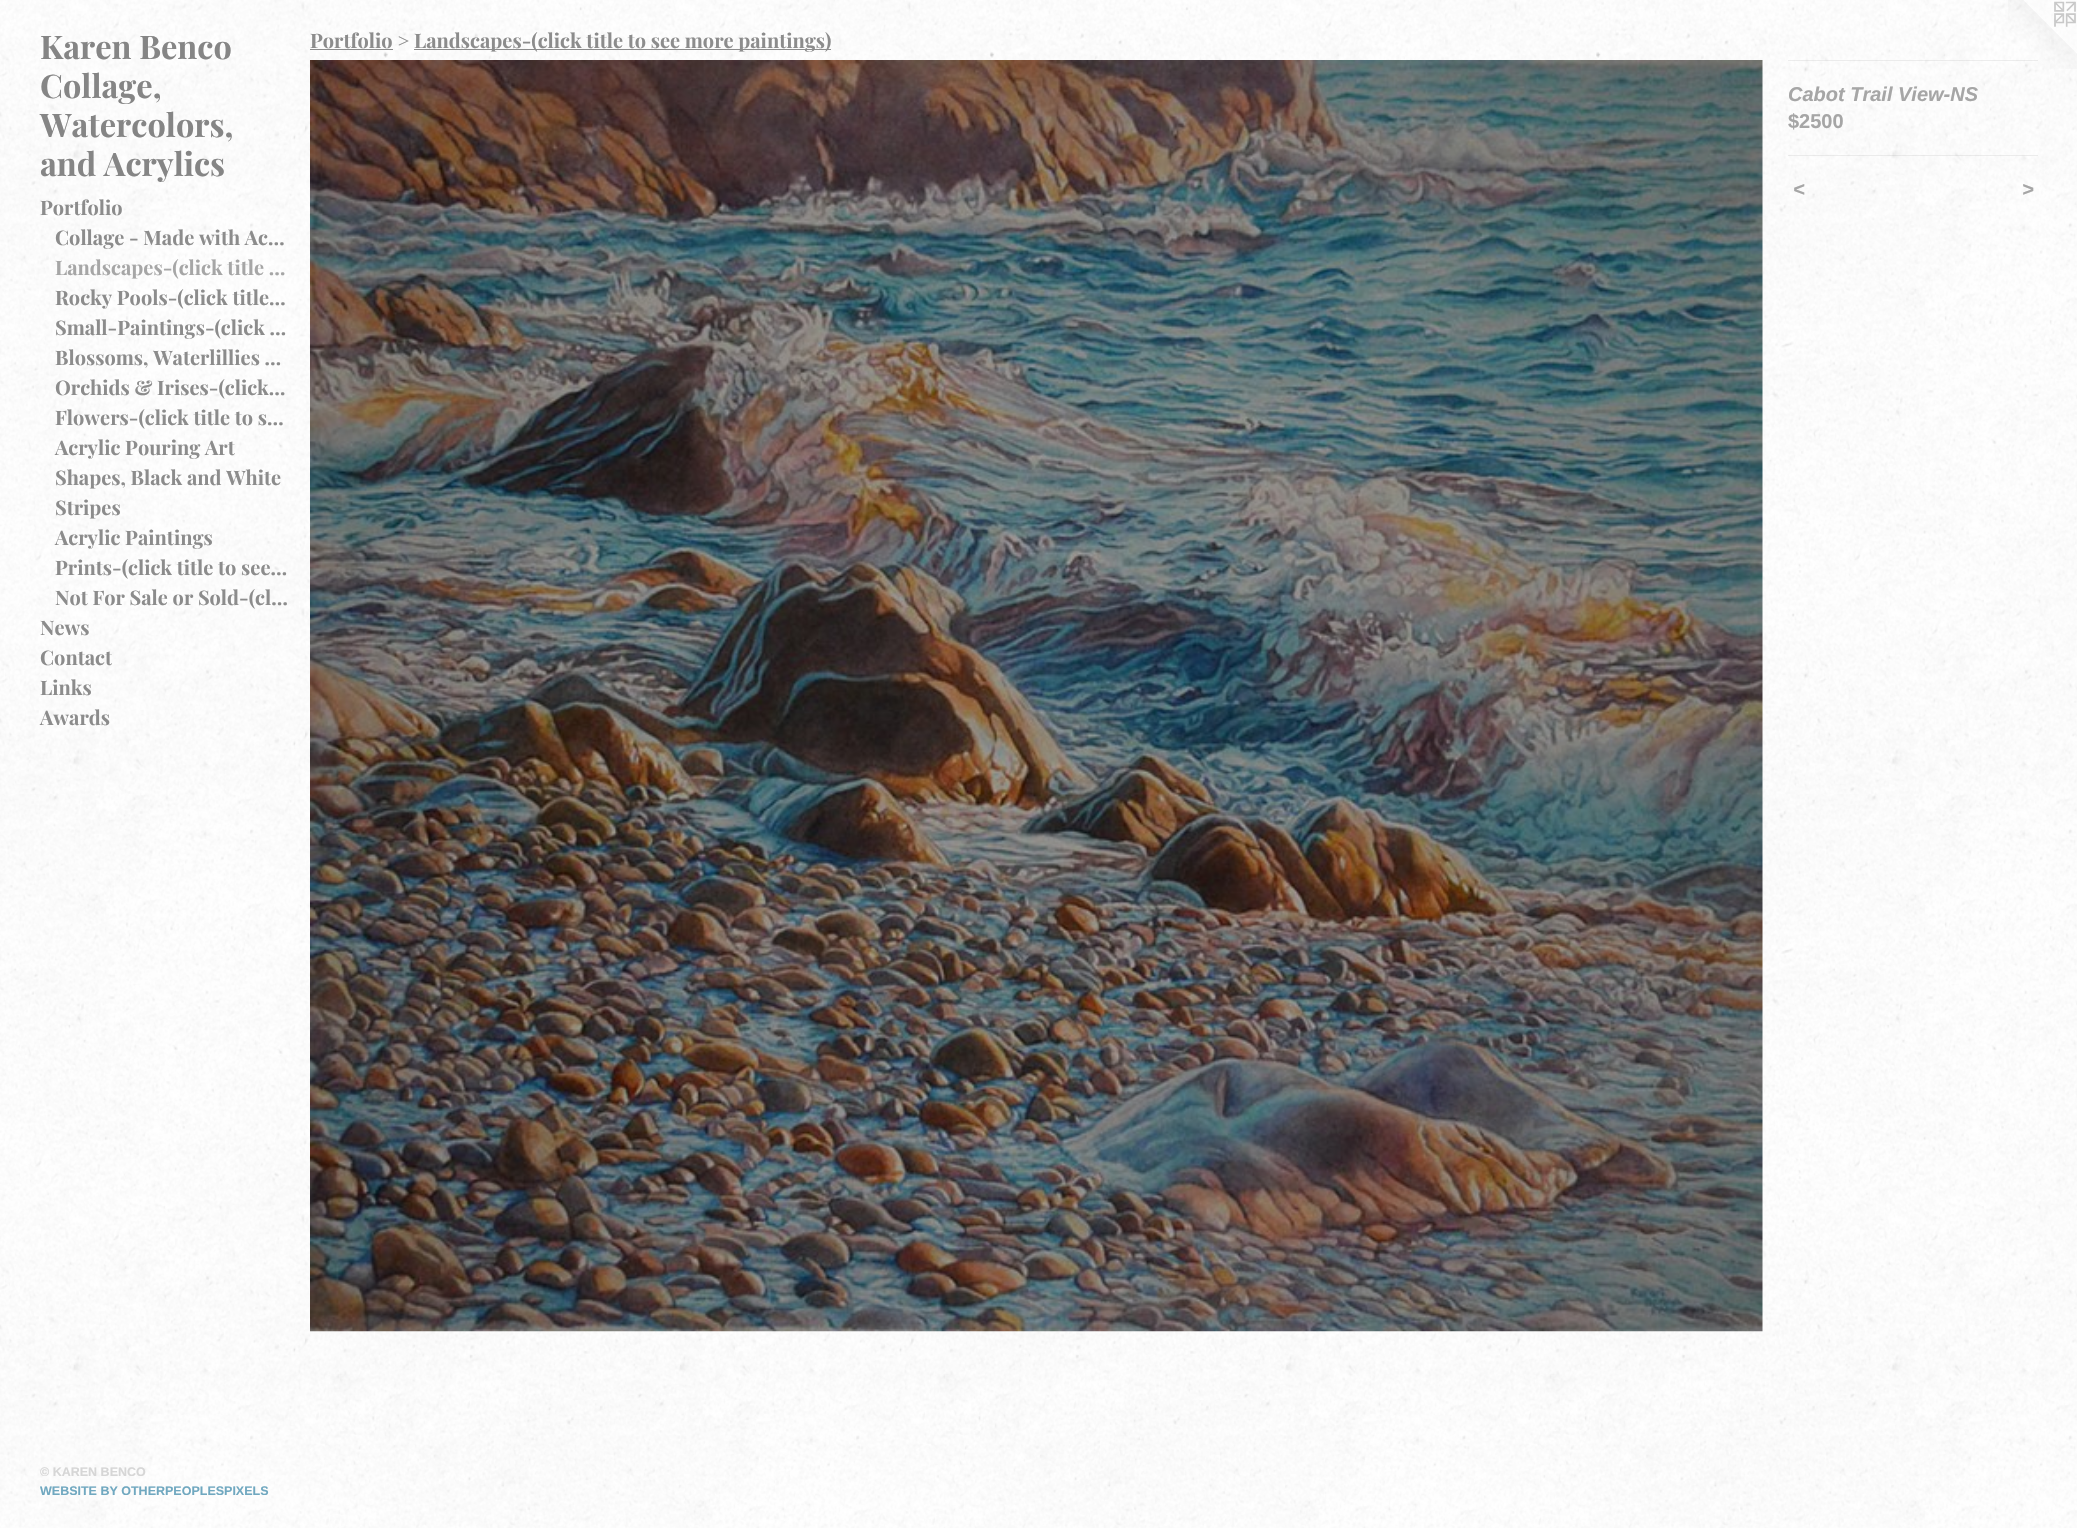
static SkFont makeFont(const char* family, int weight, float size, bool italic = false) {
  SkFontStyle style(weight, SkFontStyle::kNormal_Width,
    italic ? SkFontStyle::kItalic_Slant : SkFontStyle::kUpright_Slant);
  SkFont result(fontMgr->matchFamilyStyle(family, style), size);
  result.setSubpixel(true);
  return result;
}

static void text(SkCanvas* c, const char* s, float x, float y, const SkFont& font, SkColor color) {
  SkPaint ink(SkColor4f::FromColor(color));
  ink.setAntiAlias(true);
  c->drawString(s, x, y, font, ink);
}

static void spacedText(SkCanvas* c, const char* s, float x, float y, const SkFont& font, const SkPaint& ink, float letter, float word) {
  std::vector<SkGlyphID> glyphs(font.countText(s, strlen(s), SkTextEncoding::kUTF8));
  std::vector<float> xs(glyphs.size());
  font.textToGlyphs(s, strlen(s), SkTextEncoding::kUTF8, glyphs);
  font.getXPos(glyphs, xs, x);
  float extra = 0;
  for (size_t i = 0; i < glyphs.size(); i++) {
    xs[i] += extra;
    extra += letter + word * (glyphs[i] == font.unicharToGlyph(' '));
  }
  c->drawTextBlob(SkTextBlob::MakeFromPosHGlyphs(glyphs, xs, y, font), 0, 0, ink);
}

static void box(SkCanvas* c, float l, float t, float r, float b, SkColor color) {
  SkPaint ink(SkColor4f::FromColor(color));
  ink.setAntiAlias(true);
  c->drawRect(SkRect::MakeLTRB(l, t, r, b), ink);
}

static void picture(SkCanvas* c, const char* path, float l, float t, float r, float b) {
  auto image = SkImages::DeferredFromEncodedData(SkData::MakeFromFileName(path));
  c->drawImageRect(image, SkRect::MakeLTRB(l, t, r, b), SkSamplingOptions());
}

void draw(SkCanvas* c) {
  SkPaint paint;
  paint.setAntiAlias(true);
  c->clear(0xffffffff);
  picture(c, "img_01.png", 0, 0, 2077, 1528);
  SkFont face1 = makeFont("Playfair Display", 700, 32.5f);
  text(c, "Karen Benco", 40, 59, face1, 0xff858585);
  text(c, "Collage,", 40, 98, face1, 0xff858585);
  text(c, "Watercolors,", 40, 137, face1, 0xff858585);
  text(c, "and Acrylics", 40, 176, face1, 0xff858585);
  SkFont face2 = makeFont("Playfair Display", 700, 20);
  text(c, "Portfolio", 40, 215, face2, 0xff8c8c8c);
  text(c, "Collage - Made with Ac…", 55, 245, face2, 0xff8c8c8c);
  text(c, "Landscapes-(click title …", 55, 275, face2, 0xffa6a6a6);
  text(c, "Rocky Pools-(click title…", 55, 305, face2, 0xff8c8c8c);
  text(c, "Small-Paintings-(click …", 55, 335, face2, 0xff8c8c8c);
  text(c, "Blossoms, Waterlillies …", 55, 365, face2, 0xff8c8c8c);
  text(c, "Orchids & Irises-(click…", 55, 395, face2, 0xff8c8c8c);
  text(c, "Flowers-(click title to s…", 55, 425, face2, 0xff8c8c8c);
  text(c, "Acrylic Pouring Art", 55, 455, face2, 0xff8c8c8c);
  text(c, "Shapes, Black and White", 55, 485, face2, 0xff8c8c8c);
  text(c, "Stripes", 55, 515, face2, 0xff8c8c8c);
  text(c, "Acrylic Paintings", 55, 545, face2, 0xff8c8c8c);
  text(c, "Prints-(click title to see…", 55, 575, face2, 0xff8c8c8c);
  text(c, "Not For Sale or Sold-(cl…", 55, 605, face2, 0xff8c8c8c);
  text(c, "News", 40, 635, face2, 0xff8c8c8c);
  text(c, "Contact", 40, 665, face2, 0xff8c8c8c);
  text(c, "Links", 40, 695, face2, 0xff8c8c8c);
  text(c, "Awards", 40, 725, face2, 0xff8c8c8c);
  SkFont face3 = makeFont("Liberation Sans", 700, 12.5f);
  text(c, "© KAREN BENCO", 40, 1476, face3, 0xffd6d6d6);
  text(c, "WEBSITE BY OTHERPEOPLESPIXELS", 40, 1495, face3, 0xff70a8c0);
  text(c, "Portfolio >", 310, 48, face2, 0xff8c8c8c);
  box(c, 310, 49, 393, 50, 0xff8c8c8c);
  box(c, 414, 49, 831, 50, 0xff8c8c8c);
  text(c, "Landscapes-(click title to see more paintings)", 414, 48, face2, 0xff8c8c8c);
  picture(c, "img_02.png", 310, 60, 1763, 1332);
  picture(c, "img_03.png", 2008, 0, 2077, 69);
  box(c, 1788, 60, 2038, 61, 0x33a8a8a8);
  SkFont face4 = makeFont("Liberation Sans", 700, 20, true);
  text(c, "Cabot Trail View-NS", 1788, 101, face4, 0xffa6a6a6);
  SkFont face5 = makeFont("Liberation Sans", 700, 20);
  text(c, "$2500", 1788, 128, face5, 0xffa6a6a6);
  box(c, 1788, 155, 2038, 156, 0x33a8a8a8);
  paint.setColor(0xffa6a6a6);
  spacedText(c, "<", 1793, 196, face4, paint, 1, 0);
  spacedText(c, ">", 2022, 196, face4, paint, 1, 0);
}
